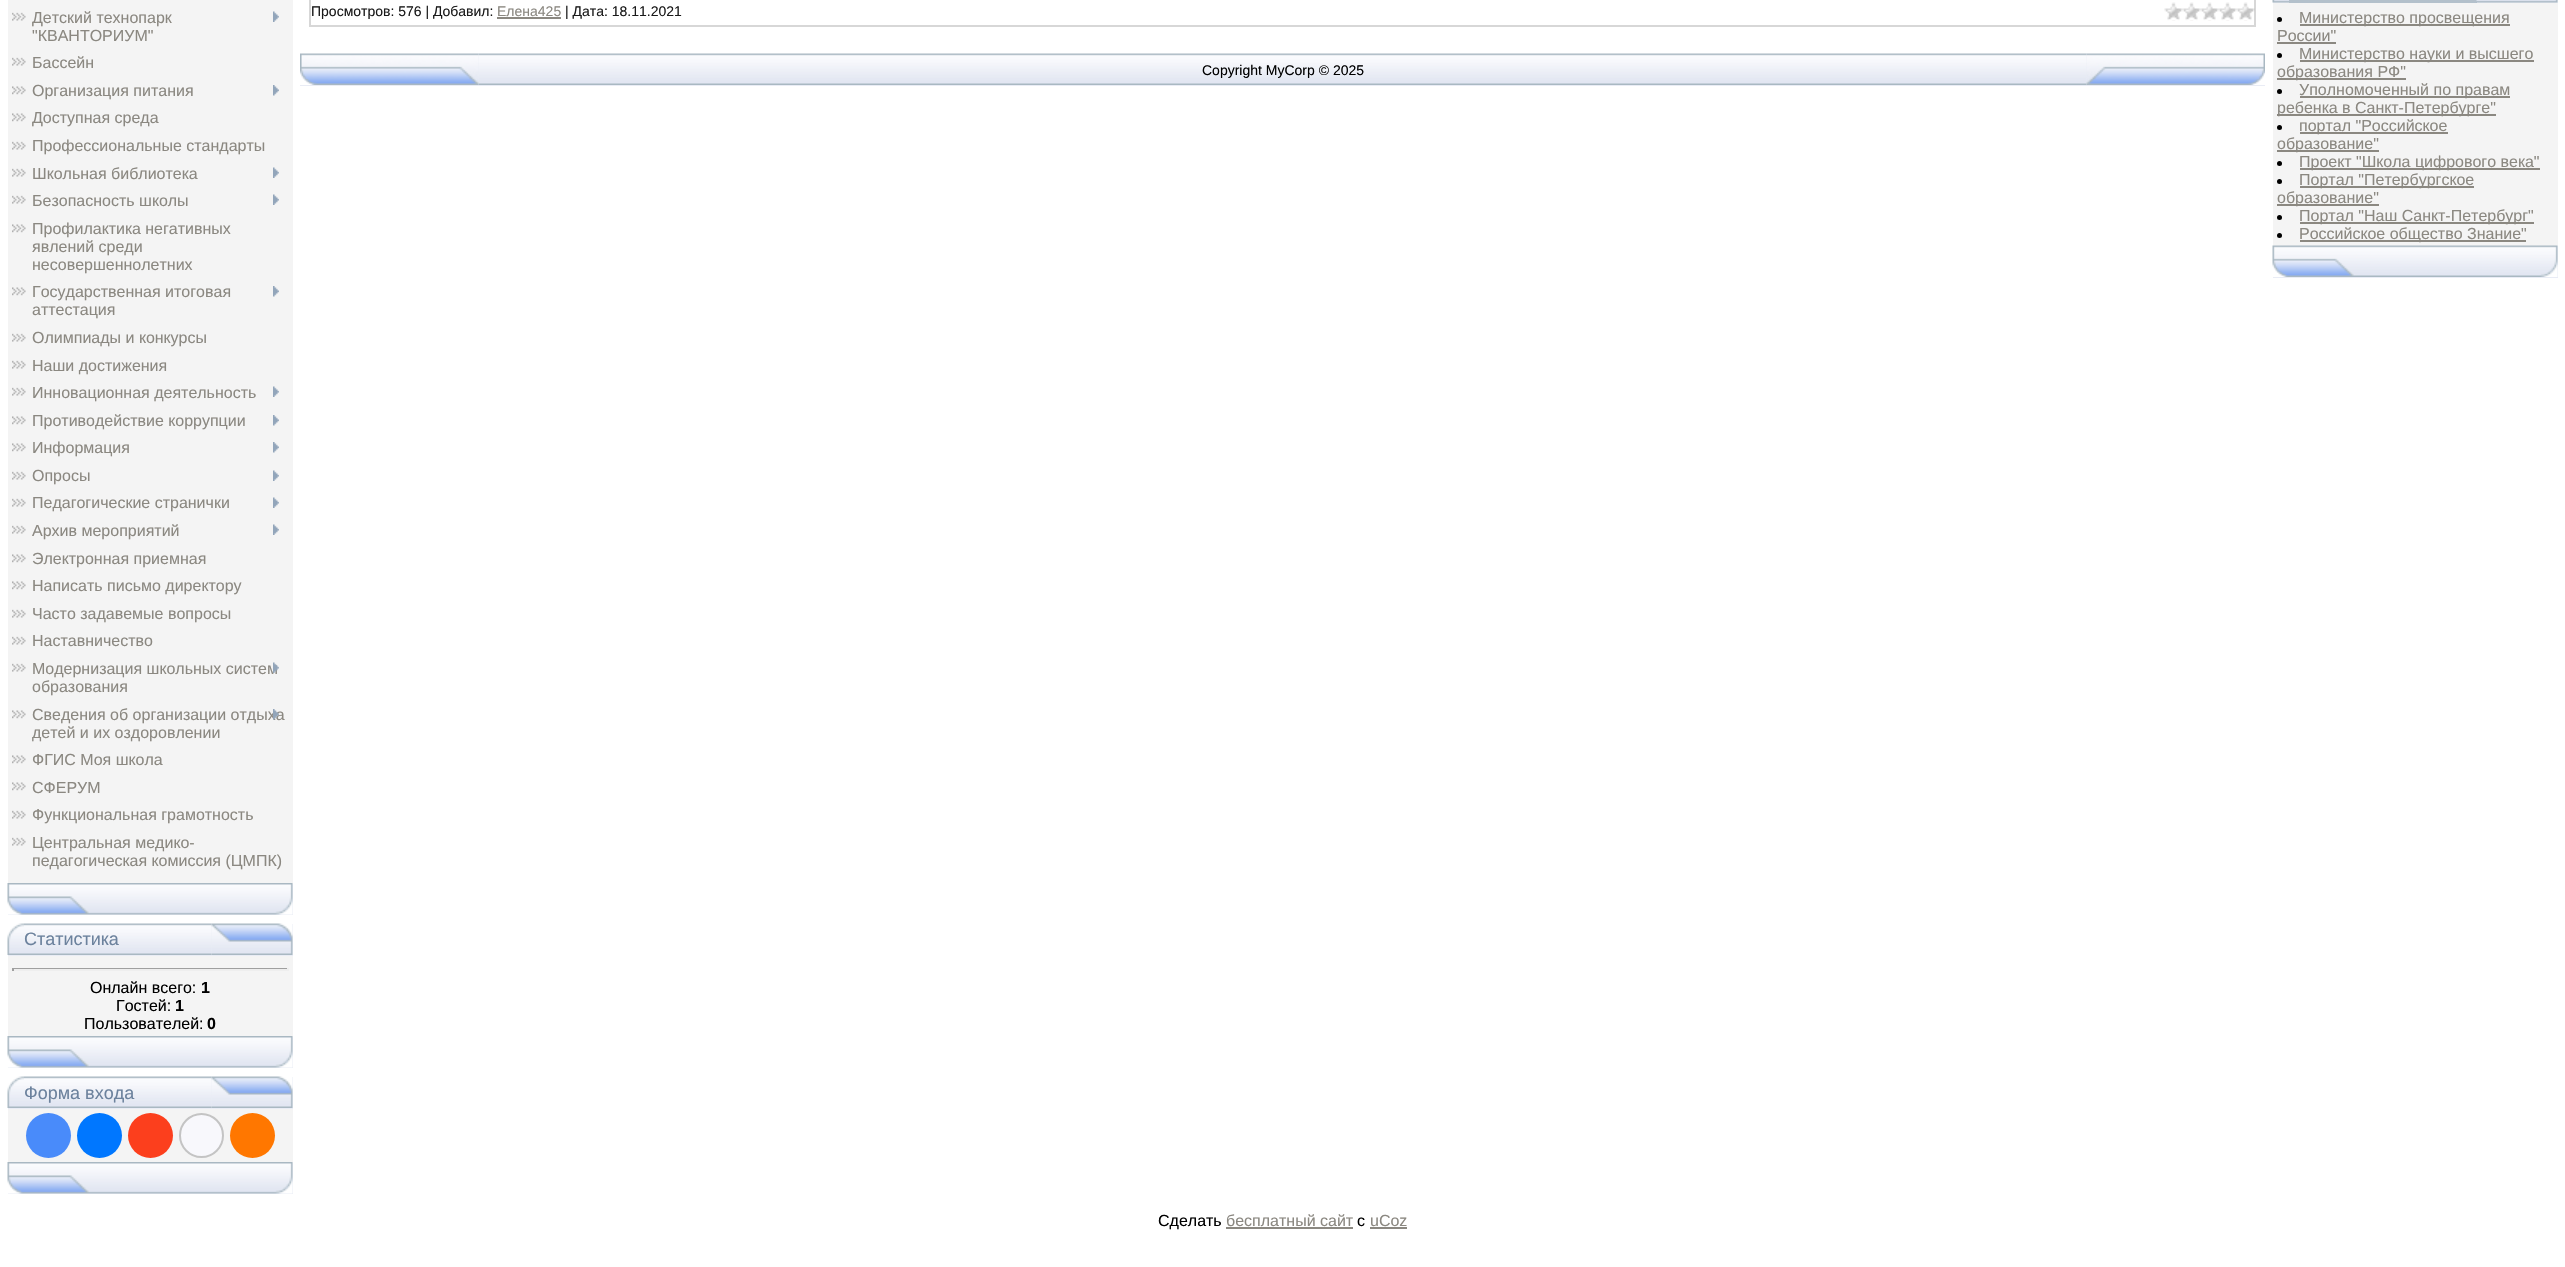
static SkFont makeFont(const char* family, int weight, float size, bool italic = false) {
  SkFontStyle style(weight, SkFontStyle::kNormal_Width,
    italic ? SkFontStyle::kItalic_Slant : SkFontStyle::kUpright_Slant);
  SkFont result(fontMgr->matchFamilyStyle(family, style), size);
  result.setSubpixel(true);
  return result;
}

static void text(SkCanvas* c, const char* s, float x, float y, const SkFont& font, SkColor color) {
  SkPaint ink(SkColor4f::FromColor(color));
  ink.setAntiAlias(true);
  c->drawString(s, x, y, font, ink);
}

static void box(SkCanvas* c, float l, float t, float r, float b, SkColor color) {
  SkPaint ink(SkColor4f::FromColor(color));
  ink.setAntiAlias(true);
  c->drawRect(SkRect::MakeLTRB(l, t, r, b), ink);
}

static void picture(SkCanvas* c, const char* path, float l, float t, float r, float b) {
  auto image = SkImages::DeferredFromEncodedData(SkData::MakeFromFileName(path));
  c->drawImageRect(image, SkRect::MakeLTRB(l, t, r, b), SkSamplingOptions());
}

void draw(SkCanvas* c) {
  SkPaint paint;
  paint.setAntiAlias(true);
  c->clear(0xffffffff);
  box(c, 8, 0, 293, 884, 0xfff4f4f4);
  picture(c, "img_01.png", 12, 12, 26, 21);
  SkFont face1 = makeFont("Liberation Sans", 400, 16);
  text(c, "Детский технопарк", 32, 23, face1, 0xff8b8881);
  picture(c, "img_02.png", 273, 11, 279, 22);
  text(c, "\"КВАНТОРИУМ\"", 32, 41, face1, 0xff8b8881);
  picture(c, "img_01.png", 12, 57, 26, 66);
  text(c, "Бассейн", 32, 68, face1, 0xff8b8881);
  picture(c, "img_03.png", 12, 86, 26, 95);
  text(c, "Организация питания", 32, 96, face1, 0xff8b8881);
  picture(c, "img_04.png", 273, 85, 279, 96);
  picture(c, "img_03.png", 12, 113, 26, 122);
  text(c, "Доступная среда", 32, 123, face1, 0xff8b8881);
  picture(c, "img_01.png", 12, 141, 26, 150);
  text(c, "Профессиональные стандарты", 32, 151, face1, 0xff8b8881);
  picture(c, "img_01.png", 12, 168, 26, 177);
  text(c, "Школьная библиотека", 32, 179, face1, 0xff8b8881);
  picture(c, "img_02.png", 273, 167, 279, 178);
  picture(c, "img_01.png", 12, 195, 26, 204);
  text(c, "Безопасность школы", 32, 206, face1, 0xff8b8881);
  picture(c, "img_02.png", 273, 194, 279, 205);
  picture(c, "img_03.png", 12, 224, 26, 233);
  text(c, "Профилактика негативных", 32, 234, face1, 0xff8b8881);
  text(c, "явлений среди", 32, 252, face1, 0xff8b8881);
  text(c, "несовершеннолетних", 32, 270, face1, 0xff8b8881);
  picture(c, "img_03.png", 12, 287, 26, 296);
  text(c, "Государственная итоговая", 32, 297, face1, 0xff8b8881);
  picture(c, "img_04.png", 273, 286, 279, 297);
  text(c, "аттестация", 32, 315, face1, 0xff8b8881);
  picture(c, "img_01.png", 12, 333, 26, 342);
  text(c, "Олимпиады и конкурсы", 32, 343, face1, 0xff8b8881);
  picture(c, "img_01.png", 12, 360, 26, 369);
  text(c, "Наши достижения", 32, 371, face1, 0xff8b8881);
  picture(c, "img_01.png", 12, 387, 26, 396);
  text(c, "Инновационная деятельность", 32, 398, face1, 0xff8b8881);
  picture(c, "img_02.png", 273, 386, 279, 397);
  picture(c, "img_03.png", 12, 416, 26, 425);
  text(c, "Противодействие коррупции", 32, 426, face1, 0xff8b8881);
  picture(c, "img_04.png", 273, 415, 279, 426);
  picture(c, "img_03.png", 12, 443, 26, 452);
  text(c, "Информация", 32, 453, face1, 0xff8b8881);
  picture(c, "img_04.png", 273, 442, 279, 453);
  picture(c, "img_01.png", 12, 471, 26, 480);
  text(c, "Опросы", 32, 481, face1, 0xff8b8881);
  picture(c, "img_02.png", 273, 470, 279, 481);
  picture(c, "img_01.png", 12, 498, 26, 507);
  text(c, "Педагогические странички", 32, 508, face1, 0xff8b8881);
  picture(c, "img_02.png", 273, 497, 279, 508);
  picture(c, "img_01.png", 12, 525, 26, 534);
  text(c, "Архив мероприятий", 32, 536, face1, 0xff8b8881);
  picture(c, "img_02.png", 273, 524, 279, 535);
  picture(c, "img_03.png", 12, 554, 26, 563);
  text(c, "Электронная приемная", 32, 564, face1, 0xff8b8881);
  picture(c, "img_03.png", 12, 581, 26, 590);
  text(c, "Написать письмо директору", 32, 591, face1, 0xff8b8881);
  picture(c, "img_01.png", 12, 609, 26, 618);
  text(c, "Часто задавемые вопросы", 32, 619, face1, 0xff8b8881);
  picture(c, "img_01.png", 12, 636, 26, 645);
  text(c, "Наставничество", 32, 646, face1, 0xff8b8881);
  picture(c, "img_01.png", 12, 663, 26, 672);
  text(c, "Модернизация школьных систем", 32, 674, face1, 0xff8b8881);
  picture(c, "img_05.png", 273, 662, 279, 673);
  text(c, "образования", 32, 692, face1, 0xff8b8881);
  picture(c, "img_03.png", 12, 710, 26, 719);
  text(c, "Сведения об организации отдыха", 32, 720, face1, 0xff8b8881);
  picture(c, "img_06.png", 273, 709, 279, 720);
  text(c, "детей и их оздоровлении", 32, 738, face1, 0xff8b8881);
  picture(c, "img_03.png", 12, 755, 26, 764);
  text(c, "ФГИС Моя школа", 32, 765, face1, 0xff8b8881);
  picture(c, "img_03.png", 12, 782, 26, 791);
  text(c, "СФЕРУМ", 32, 793, face1, 0xff8b8881);
  picture(c, "img_01.png", 12, 810, 26, 819);
  text(c, "Функциональная грамотность", 32, 820, face1, 0xff8b8881);
  picture(c, "img_01.png", 12, 837, 26, 846);
  text(c, "Центральная медико-", 32, 848, face1, 0xff8b8881);
  text(c, "педагогическая комиссия (ЦМПК)", 32, 866, face1, 0xff8b8881);
  box(c, 8, 884, 293, 915, 0xffe9ecf5);
  picture(c, "img_07.png", 7, 883, 293, 915);
  box(c, 8, 924, 293, 956, 0xffe9ecf5);
  picture(c, "img_08.png", 7, 923, 24, 955);
  picture(c, "img_09.png", 24, 923, 212, 955);
  SkFont face2 = makeFont("Liberation Sans", 400, 18);
  text(c, "Статистика", 24, 945, face2, 0xff6c829d);
  picture(c, "img_10.png", 211, 923, 293, 955);
  box(c, 8, 956, 293, 1037, 0xfff4f4f4);
  box(c, 12, 968, 288, 969, 0xff9f9f9f);
  box(c, 287, 968, 289, 971, 0xffeeeeee);
  box(c, 12, 969, 288, 971, 0xffeeeeee);
  box(c, 12, 968, 14, 971, 0xff9f9f9f);
  text(c, "Онлайн всего:", 90, 993, face1, 0xff000000);
  SkFont face3 = makeFont("Liberation Sans", 700, 16);
  text(c, "1", 201, 993, face3, 0xff000000);
  text(c, "Гостей:", 116, 1011, face1, 0xff000000);
  text(c, "1", 175, 1011, face3, 0xff000000);
  text(c, "Пользователей:", 84, 1029, face1, 0xff000000);
  text(c, "0", 207, 1029, face3, 0xff000000);
  box(c, 8, 1037, 293, 1068, 0xffe9ecf5);
  picture(c, "img_07.png", 7, 1036, 293, 1068);
  box(c, 8, 1077, 293, 1109, 0xffe9ecf5);
  picture(c, "img_08.png", 7, 1076, 24, 1108);
  picture(c, "img_09.png", 24, 1076, 212, 1108);
  text(c, "Форма входа", 24, 1099, face2, 0xff6c829d);
  picture(c, "img_10.png", 211, 1076, 293, 1108);
  box(c, 8, 1109, 293, 1163, 0xfff4f4f4);
  paint.setColor(0xff498bfa);
  c->drawCircle(48.5f, 1135.5f, 22.5f, paint);
  paint.setColor(0xff0077ff);
  c->drawCircle(99.5f, 1135.5f, 22.5f, paint);
  paint.setColor(0xfffc3f1d);
  c->drawCircle(150.5f, 1135.5f, 22.5f, paint);
  paint.setColor(0xfff8f8fc);
  c->drawCircle(201.5f, 1135.5f, 21.5f, paint);
  paint.setStyle(SkPaint::kStroke_Style);
  paint.setStrokeWidth(2);
  paint.setColor(0xffc4c4c4);
  c->drawCircle(201.5f, 1135.5f, 21.5f, paint);
  paint.setStyle(SkPaint::kFill_Style);
  paint.setColor(0xffff7700);
  c->drawCircle(252.5f, 1135.5f, 22.5f, paint);
  box(c, 8, 1163, 293, 1194, 0xffe9ecf5);
  picture(c, "img_07.png", 7, 1162, 293, 1194);
  paint.setStyle(SkPaint::kStroke_Style);
  paint.setColor(0xffd7d7d7);
  c->drawRect(SkRect::MakeLTRB(310, -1, 2255, 26), paint);
  SkFont face4 = makeFont("Liberation Sans", 400, 14);
  text(c, "Просмотров: 576 | Добавил:", 311, 16, face4, 0xff1a1a1a);
  text(c, "Елена425", 497, 16, face4, 0xff8b8881);
  box(c, 497, 17, 561, 19, 0xff8b8881);
  text(c, "| Дата: 18.11.2021", 565, 16, face4, 0xff1a1a1a);
  picture(c, "img_11.png", 2164, 2, 2255, 21);
  box(c, 300, 54, 2087, 86, 0xffe9ecf5);
  picture(c, "img_14.png", 478, 53, 2087, 85);
  picture(c, "img_12.png", 300, 53, 479, 85);
  box(c, 2087, 85, 2265, 86, 0xffe9ecf5);
  picture(c, "img_13.png", 2086, 53, 2265, 85);
  text(c, "Copyright MyCorp © 2025", 1202, 75, face4, 0xff000000);
  box(c, 2273, 0, 2558, 3, 0xffe9ecf5);
  picture(c, "img_15.png", 2272, 0, 2289, 3);
  box(c, 2289, 0, 2477, 3, 0xffb3c0cb);
  picture(c, "img_16.png", 2476, 0, 2558, 3);
  box(c, 2273, 3, 2558, 246, 0xfff4f4f4);
  paint.setStyle(SkPaint::kFill_Style);
  paint.setColor(0xff000000);
  c->drawCircle(2279.5f, 19.5f, 2.5f, paint);
  box(c, 2300, 24, 2510, 26, 0xff8b8881);
  text(c, "Министерство просвещения", 2299, 23, face1, 0xff8b8881);
  text(c, "России\"", 2277, 41, face1, 0xff8b8881);
  box(c, 2277, 42, 2336, 44, 0xff8b8881);
  c->drawCircle(2279.5f, 55.5f, 2.5f, paint);
  box(c, 2300, 60, 2534, 62, 0xff8b8881);
  text(c, "Министерство науки и высшего", 2299, 59, face1, 0xff8b8881);
  box(c, 2277, 78, 2406, 80, 0xff8b8881);
  text(c, "образования РФ\"", 2277, 77, face1, 0xff8b8881);
  c->drawCircle(2279.5f, 91.5f, 2.5f, paint);
  box(c, 2300, 96, 2510, 98, 0xff8b8881);
  text(c, "Уполномоченный по правам", 2299, 95, face1, 0xff8b8881);
  box(c, 2277, 114, 2496, 116, 0xff8b8881);
  text(c, "ребенка в Санкт-Петербурге\"", 2277, 113, face1, 0xff8b8881);
  c->drawCircle(2279.5f, 127.5f, 2.5f, paint);
  box(c, 2300, 132, 2448, 134, 0xff8b8881);
  text(c, "портал \"Российское", 2299, 131, face1, 0xff8b8881);
  box(c, 2277, 150, 2379, 152, 0xff8b8881);
  text(c, "образование\"", 2277, 149, face1, 0xff8b8881);
  c->drawCircle(2279.5f, 163.5f, 2.5f, paint);
  box(c, 2300, 168, 2540, 170, 0xff8b8881);
  text(c, "Проект \"Школа цифрового века\"", 2299, 167, face1, 0xff8b8881);
  c->drawCircle(2279.5f, 181.5f, 2.5f, paint);
  box(c, 2300, 186, 2474, 188, 0xff8b8881);
  text(c, "Портал \"Петербургское", 2299, 185, face1, 0xff8b8881);
  box(c, 2277, 204, 2379, 206, 0xff8b8881);
  text(c, "образование\"", 2277, 203, face1, 0xff8b8881);
  c->drawCircle(2279.5f, 217.5f, 2.5f, paint);
  box(c, 2300, 222, 2534, 224, 0xff8b8881);
  text(c, "Портал \"Наш Санкт-Петербург\"", 2299, 221, face1, 0xff8b8881);
  c->drawCircle(2279.5f, 235.5f, 2.5f, paint);
  box(c, 2300, 240, 2526, 242, 0xff8b8881);
  text(c, "Российское общество Знание\"", 2299, 239, face1, 0xff8b8881);
  box(c, 2273, 246, 2558, 278, 0xffe9ecf5);
  picture(c, "img_17.png", 2272, 245, 2558, 277);
  text(c, "Сделать", 1158, 1226, face1, 0xff000000);
  text(c, "бесплатный сайт", 1226, 1226, face1, 0xff8b8881);
  box(c, 1226, 1227, 1353, 1229, 0xff8b8881);
  text(c, "с", 1357, 1226, face1, 0xff000000);
  text(c, "uCoz", 1370, 1226, face1, 0xff8b8881);
  box(c, 1370, 1227, 1407, 1229, 0xff8b8881);
}
